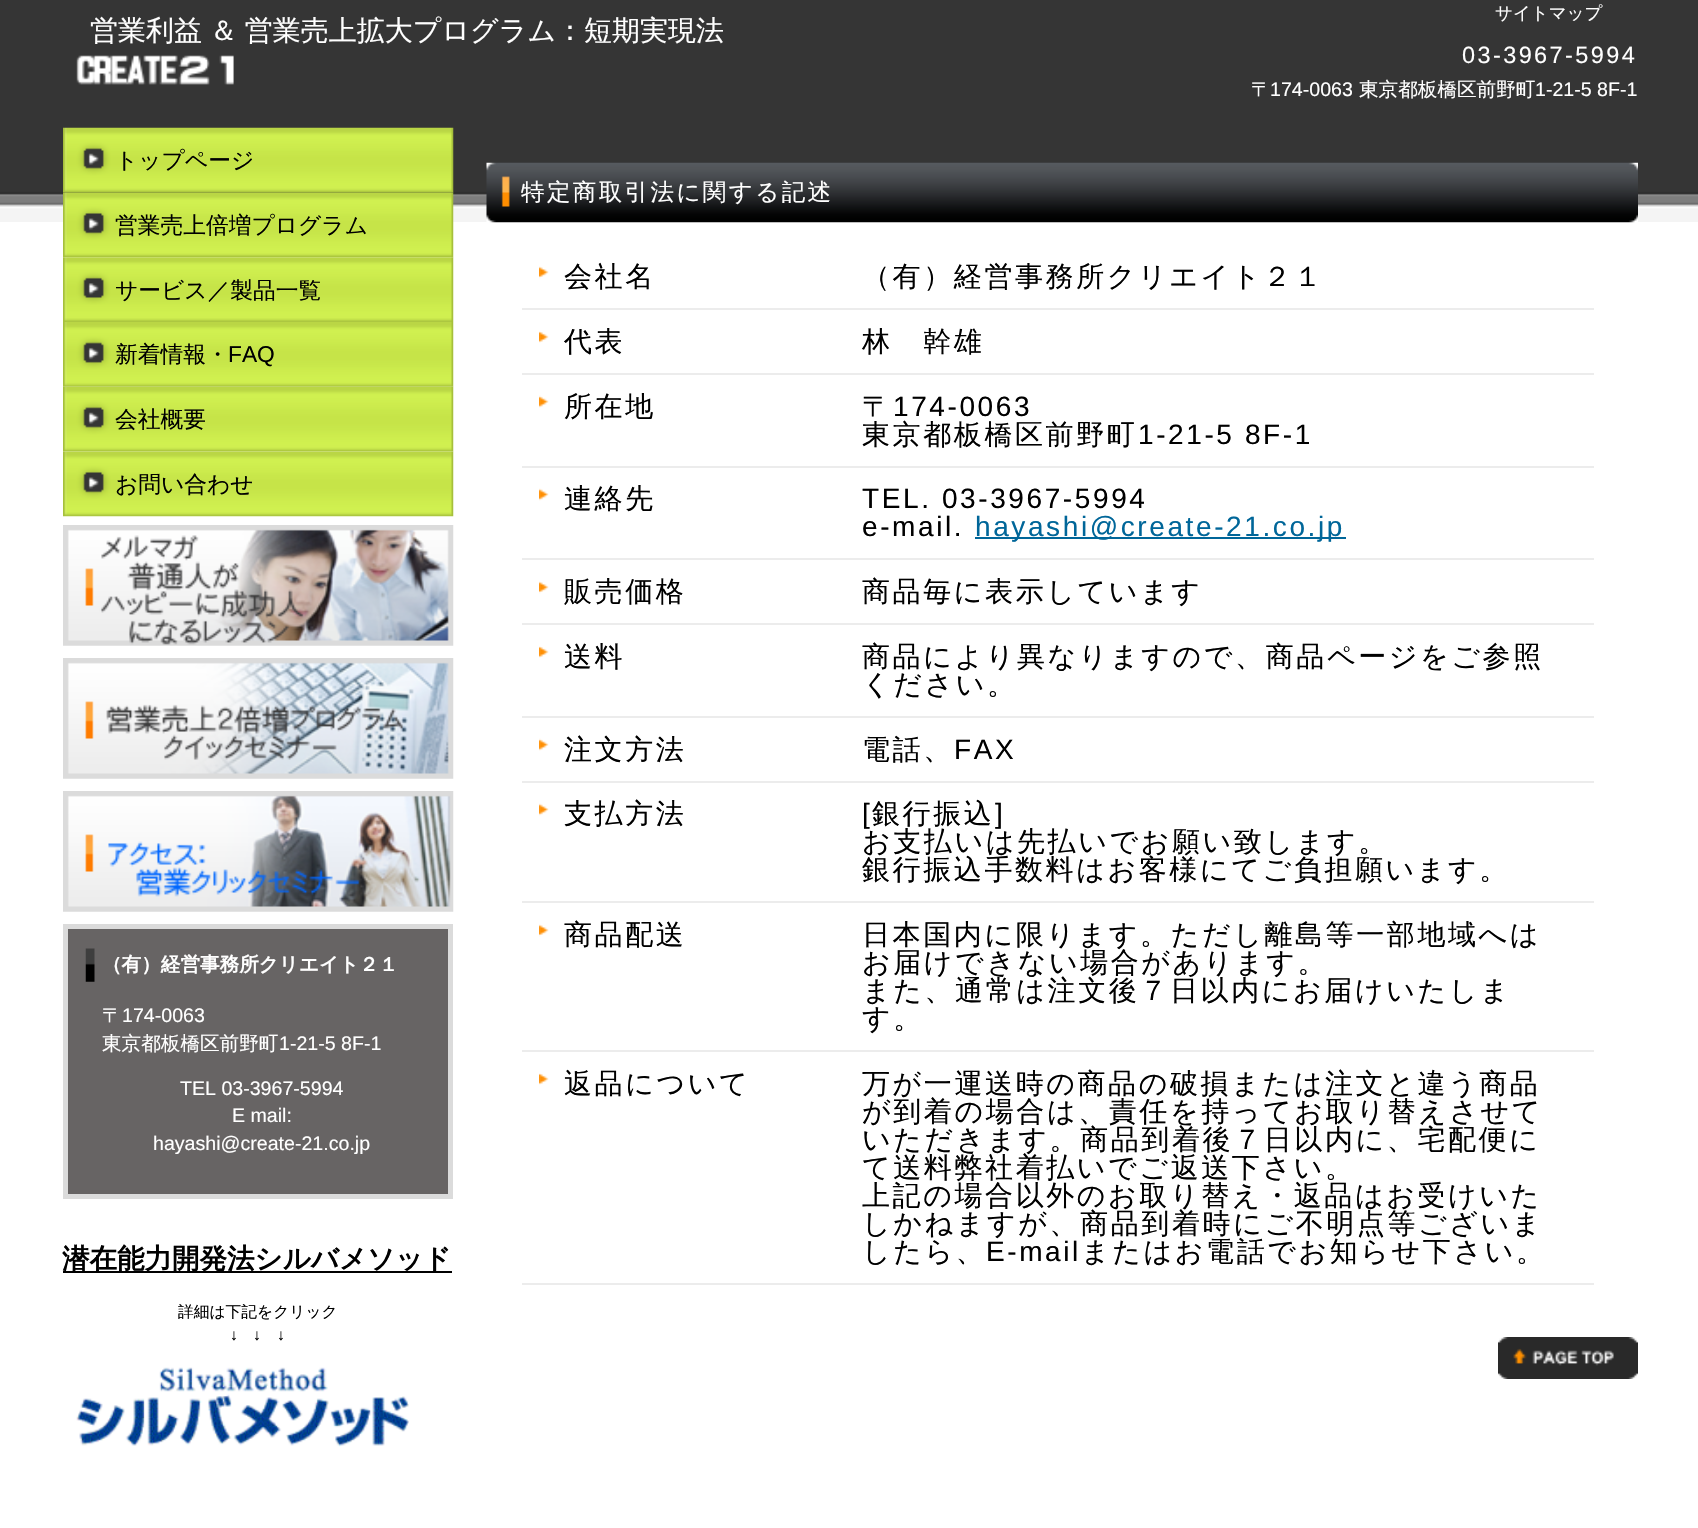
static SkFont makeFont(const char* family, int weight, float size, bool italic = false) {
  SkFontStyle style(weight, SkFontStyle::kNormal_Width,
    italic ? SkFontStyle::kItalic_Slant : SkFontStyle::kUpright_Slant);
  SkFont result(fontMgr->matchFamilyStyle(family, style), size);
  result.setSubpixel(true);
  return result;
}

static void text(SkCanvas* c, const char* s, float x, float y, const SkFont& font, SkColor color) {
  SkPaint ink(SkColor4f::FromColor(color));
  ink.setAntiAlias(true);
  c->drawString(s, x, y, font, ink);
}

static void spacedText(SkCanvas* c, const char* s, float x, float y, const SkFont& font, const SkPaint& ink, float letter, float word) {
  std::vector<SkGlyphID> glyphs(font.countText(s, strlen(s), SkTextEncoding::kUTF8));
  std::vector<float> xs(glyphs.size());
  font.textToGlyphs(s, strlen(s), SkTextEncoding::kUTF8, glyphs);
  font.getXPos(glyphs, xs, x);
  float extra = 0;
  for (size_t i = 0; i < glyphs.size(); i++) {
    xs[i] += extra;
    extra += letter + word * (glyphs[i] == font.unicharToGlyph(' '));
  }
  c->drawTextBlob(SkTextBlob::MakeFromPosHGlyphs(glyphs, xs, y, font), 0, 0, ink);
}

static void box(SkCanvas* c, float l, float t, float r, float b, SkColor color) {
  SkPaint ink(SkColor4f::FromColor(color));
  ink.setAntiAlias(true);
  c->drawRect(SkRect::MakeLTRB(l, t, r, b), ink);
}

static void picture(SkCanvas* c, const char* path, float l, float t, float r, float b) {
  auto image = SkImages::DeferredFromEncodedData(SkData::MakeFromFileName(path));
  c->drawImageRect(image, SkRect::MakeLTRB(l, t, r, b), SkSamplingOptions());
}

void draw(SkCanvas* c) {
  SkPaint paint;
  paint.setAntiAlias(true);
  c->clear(0xffffffff);
  picture(c, "img_01.png", 0, 0, 1698, 222);
  SkFont face1 = makeFont("WenQuanYi Zen Hei", 500, 17.5f);
  text(c, "サイトマップ", 1495, 19, face1, 0xffffffff);
  SkFont face2 = makeFont("WenQuanYi Zen Hei", 500, 28);
  paint.setColor(0xffffffff);
  spacedText(c, "営業利益 ＆ 営業売上拡大プログラム：短期実現法", 90, 40, face2, paint, 0, -1);
  picture(c, "img_02.png", 76, 55, 234, 85);
  SkFont face3 = makeFont("Liberation Sans", 400, 23.5f);
  spacedText(c, "03-3967-5994", 1462, 63, face3, paint, 2.4f, 0);
  SkFont face4 = makeFont("WenQuanYi Zen Hei", 500, 19.6f);
  text(c, "〒", 1251, 96, face4, 0xffffffff);
  SkFont face5 = makeFont("Liberation Sans", 400, 19.6f);
  text(c, "174-0063", 1270, 96, face5, 0xffffffff);
  text(c, "東京都板橋区前野町", 1359, 96, face4, 0xffffffff);
  text(c, "1-21-5 8F-1", 1535, 96, face5, 0xffffffff);
  picture(c, "img_03.png", 63, 127, 454, 193);
  SkFont face6 = makeFont("WenQuanYi Zen Hei", 500, 22.75f);
  text(c, "トップページ", 115, 168, face6, 0xff000000);
  picture(c, "img_04.png", 63, 192, 454, 258);
  text(c, "営業売上倍増プログラム", 115, 233, face6, 0xff000000);
  picture(c, "img_05.png", 63, 257, 454, 322);
  text(c, "サービス／製品一覧", 115, 298, face6, 0xff000000);
  picture(c, "img_06.png", 63, 322, 454, 387);
  text(c, "新着情報・", 115, 362, face6, 0xff000000);
  SkFont face7 = makeFont("Liberation Sans", 400, 22.75f);
  text(c, "FAQ", 228, 362, face7, 0xff000000);
  picture(c, "img_07.png", 63, 386, 454, 452);
  text(c, "会社概要", 115, 427, face6, 0xff000000);
  picture(c, "img_08.png", 63, 451, 454, 517);
  text(c, "お問い合わせ", 115, 492, face6, 0xff000000);
  picture(c, "img_09.png", 486, 162, 1638, 223);
  SkFont face8 = makeFont("WenQuanYi Zen Hei", 500, 23.5f);
  spacedText(c, "特定商取引法に関する記述", 521, 200, face8, paint, 2.4f, 0);
  picture(c, "img_10.png", 539, 266, 549, 279);
  paint.setColor(0xff000000);
  spacedText(c, "会社名", 564, 286, face2, paint, 2.6f, 0);
  box(c, 522, 308, 1594, 310, 0xffececec);
  spacedText(c, "（有）経営事務所クリエイト２１", 862, 286, face2, paint, 2.6f, 0);
  picture(c, "img_11.png", 539, 331, 549, 343);
  spacedText(c, "代表", 564, 351, face2, paint, 2.6f, 0);
  box(c, 522, 373, 1594, 375, 0xffececec);
  spacedText(c, "林　幹雄", 862, 351, face2, paint, 2.6f, 0);
  picture(c, "img_12.png", 539, 395, 549, 408);
  spacedText(c, "所在地", 564, 416, face2, paint, 2.6f, 0);
  box(c, 522, 466, 1594, 468, 0xffececec);
  spacedText(c, "〒", 862, 416, face2, paint, 2.6f, 0);
  SkFont face9 = makeFont("Liberation Sans", 400, 28);
  spacedText(c, "174-0063", 893, 416, face9, paint, 2.6f, 0);
  spacedText(c, "東京都板橋区前野町", 862, 444, face2, paint, 2.6f, 0);
  spacedText(c, "1-21-5 8F-1", 1138, 444, face9, paint, 2.6f, 0);
  picture(c, "img_13.png", 539, 488, 549, 501);
  spacedText(c, "連絡先", 564, 508, face2, paint, 2.6f, 0);
  box(c, 522, 558, 1594, 560, 0xffececec);
  spacedText(c, "TEL. 03-3967-5994", 862, 508, face9, paint, 2.6f, 0);
  spacedText(c, "e-mail.", 862, 536, face9, paint, 2.6f, 0);
  box(c, 975, 537, 1346, 539, 0xff006699);
  paint.setColor(0xff006699);
  spacedText(c, "hayashi@create-21.co.jp", 975, 536, face9, paint, 2.6f, 0);
  picture(c, "img_10.png", 539, 581, 549, 594);
  paint.setColor(0xff000000);
  spacedText(c, "販売価格", 564, 601, face2, paint, 2.6f, 0);
  box(c, 522, 623, 1594, 625, 0xffececec);
  spacedText(c, "商品毎に表示しています", 862, 601, face2, paint, 2.6f, 0);
  picture(c, "img_11.png", 539, 646, 549, 658);
  spacedText(c, "送料", 564, 666, face2, paint, 2.6f, 0);
  box(c, 522, 716, 1594, 718, 0xffececec);
  spacedText(c, "商品により異なりますので、商品ページをご参照", 862, 666, face2, paint, 2.6f, 0);
  spacedText(c, "ください。", 862, 694, face2, paint, 2.6f, 0);
  picture(c, "img_12.png", 539, 738, 549, 751);
  spacedText(c, "注文方法", 564, 759, face2, paint, 2.6f, 0);
  box(c, 522, 781, 1594, 783, 0xffececec);
  spacedText(c, "電話、", 862, 759, face2, paint, 2.6f, 0);
  spacedText(c, "FAX", 954, 759, face9, paint, 2.6f, 0);
  picture(c, "img_13.png", 539, 803, 549, 816);
  spacedText(c, "支払方法", 564, 823, face2, paint, 2.6f, 0);
  box(c, 522, 901, 1594, 903, 0xffececec);
  spacedText(c, "[", 862, 823, face9, paint, 2.6f, 0);
  spacedText(c, "銀行振込", 872, 823, face2, paint, 2.6f, 0);
  spacedText(c, "]", 995, 823, face9, paint, 2.6f, 0);
  spacedText(c, "お支払いは先払いでお願い致します。", 862, 851, face2, paint, 2.6f, 0);
  spacedText(c, "銀行振込手数料はお客様にてご負担願います。", 862, 879, face2, paint, 2.6f, 0);
  picture(c, "img_10.png", 539, 924, 549, 937);
  spacedText(c, "商品配送", 564, 944, face2, paint, 2.6f, 0);
  box(c, 522, 1050, 1594, 1052, 0xffececec);
  spacedText(c, "日本国内に限ります。ただし離島等一部地域へは", 862, 944, face2, paint, 2.6f, 0);
  spacedText(c, "お届けできない場合があります。", 862, 972, face2, paint, 2.6f, 0);
  spacedText(c, "また、通常は注文後７日以内にお届けいたしま", 862, 1000, face2, paint, 2.6f, 0);
  spacedText(c, "す。", 862, 1028, face2, paint, 2.6f, 0);
  picture(c, "img_11.png", 539, 1073, 549, 1085);
  spacedText(c, "返品について", 564, 1093, face2, paint, 2.6f, 0);
  box(c, 522, 1283, 1594, 1285, 0xffececec);
  spacedText(c, "万が一運送時の商品の破損または注文と違う商品", 862, 1093, face2, paint, 2.6f, 0);
  spacedText(c, "が到着の場合は、責任を持ってお取り替えさせて", 862, 1121, face2, paint, 2.6f, 0);
  spacedText(c, "いただきます。商品到着後７日以内に、宅配便に", 862, 1149, face2, paint, 2.6f, 0);
  spacedText(c, "て送料弊社着払いでご返送下さい。", 862, 1177, face2, paint, 2.6f, 0);
  spacedText(c, "上記の場合以外のお取り替え・返品はお受けいた", 862, 1205, face2, paint, 2.6f, 0);
  spacedText(c, "しかねますが、商品到着時にご不明点等ございま", 862, 1233, face2, paint, 2.6f, 0);
  spacedText(c, "したら、", 862, 1261, face2, paint, 2.6f, 0);
  spacedText(c, "E-mail", 986, 1261, face9, paint, 2.6f, 0);
  spacedText(c, "またはお電話でお知らせ下さい。", 1081, 1261, face2, paint, 2.6f, 0);
  picture(c, "img_14.png", 1498, 1337, 1638, 1379);
  picture(c, "img_15.png", 63, 525, 454, 646);
  picture(c, "img_16.png", 63, 658, 454, 779);
  picture(c, "img_17.png", 63, 791, 454, 912);
  paint.setColor(0xff676464);
  c->drawRect(SkRect::MakeLTRB(65.5f, 926.5f, 450.5f, 1196.5f), paint);
  paint.setStyle(SkPaint::kStroke_Style);
  paint.setStrokeWidth(5);
  paint.setColor(0xffdbdbdb);
  c->drawRect(SkRect::MakeLTRB(65.5f, 926.5f, 450.5f, 1196.5f), paint);
  picture(c, "img_18.png", 85, 948, 95, 982);
  SkFont face10 = makeFont("WenQuanYi Zen Hei", 700, 19.6f);
  text(c, "（有）経営事務所クリエイト２１", 102, 971, face10, 0xffffffff);
  text(c, "〒", 102, 1022, face4, 0xffffffff);
  text(c, "174-0063", 122, 1022, face5, 0xffffffff);
  text(c, "東京都板橋区前野町", 102, 1050, face4, 0xffffffff);
  text(c, "1-21-5 8F-1", 279, 1050, face5, 0xffffffff);
  text(c, "TEL 03-3967-5994", 180, 1095, face5, 0xffffffff);
  text(c, "E mail:", 232, 1122, face5, 0xffffffff);
  text(c, "hayashi@create-21.co.jp", 153, 1150, face5, 0xffffffff);
  box(c, 63, 1271, 452, 1273, 0xff000000);
  SkFont face11 = makeFont("WenQuanYi Zen Hei", 700, 27.5f);
  text(c, "潜在能力開発法シルバメソッド", 62, 1268, face11, 0xff000000);
  SkFont face12 = makeFont("WenQuanYi Zen Hei", 500, 15.75f);
  text(c, "詳細は下記をクリック", 178, 1317, face12, 0xff000000);
  SkFont face13 = makeFont("Liberation Sans", 400, 15.75f);
  text(c, "↓", 230, 1340, face13, 0xff000000);
  text(c, "↓", 253, 1340, face13, 0xff000000);
  text(c, "↓", 277, 1340, face13, 0xff000000);
  picture(c, "img_19.png", 76, 1367, 409, 1447);
}
